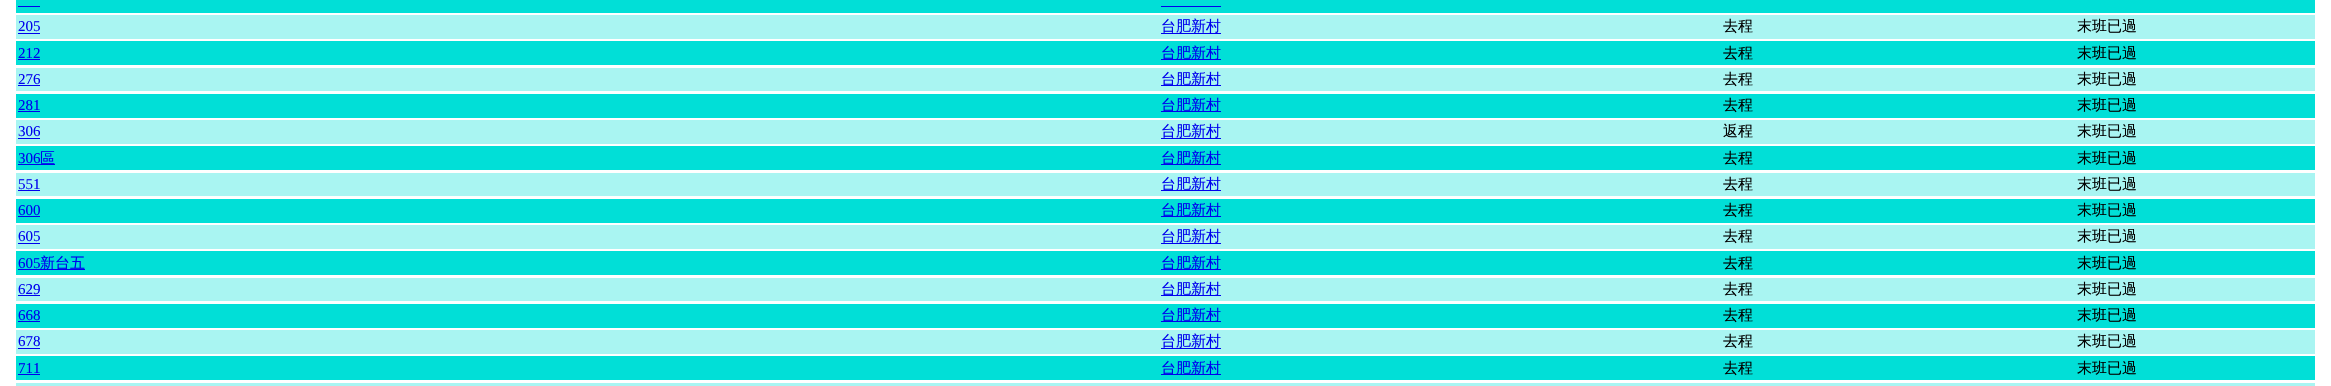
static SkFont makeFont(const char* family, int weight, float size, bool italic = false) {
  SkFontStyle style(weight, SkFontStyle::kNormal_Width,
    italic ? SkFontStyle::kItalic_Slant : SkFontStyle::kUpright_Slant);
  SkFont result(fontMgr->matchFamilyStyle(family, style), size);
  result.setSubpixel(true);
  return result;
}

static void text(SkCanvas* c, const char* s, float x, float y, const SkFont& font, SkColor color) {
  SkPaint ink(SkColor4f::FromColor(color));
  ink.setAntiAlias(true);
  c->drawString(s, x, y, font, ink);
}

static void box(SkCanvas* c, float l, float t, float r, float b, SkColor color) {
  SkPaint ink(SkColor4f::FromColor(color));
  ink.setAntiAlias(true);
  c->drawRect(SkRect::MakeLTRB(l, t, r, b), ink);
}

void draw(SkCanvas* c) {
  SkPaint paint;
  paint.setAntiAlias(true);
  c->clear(0xffffffff);
  box(c, 16, 0, 2315, 13, 0xff01dfd7);
  box(c, 18, 6, 40, 7, 0xff0000ee);
  box(c, 1161, 6, 1221, 7, 0xff0000ee);
  box(c, 16, 15, 2315, 39, 0xffa9f5f2);
  SkFont face1 = makeFont("Liberation Serif", 400, 15);
  text(c, "205", 18, 31, face1, 0xff0000ee);
  box(c, 18, 33, 40, 34, 0xff0000ee);
  box(c, 1161, 33, 1221, 34, 0xff0000ee);
  SkFont face2 = makeFont("WenQuanYi Zen Hei", 500, 15);
  text(c, "台肥新村", 1161, 31, face2, 0xff0000ee);
  text(c, "去程", 1723, 31, face2, 0xff000000);
  text(c, "末班已過", 2077, 31, face2, 0xff000000);
  box(c, 16, 41, 2315, 65, 0xff01dfd7);
  text(c, "212", 18, 58, face1, 0xff0000ee);
  box(c, 18, 59, 40, 60, 0xff0000ee);
  box(c, 1161, 59, 1221, 60, 0xff0000ee);
  text(c, "台肥新村", 1161, 58, face2, 0xff0000ee);
  text(c, "去程", 1723, 58, face2, 0xff000000);
  text(c, "末班已過", 2077, 58, face2, 0xff000000);
  box(c, 16, 68, 2315, 91, 0xffa9f5f2);
  text(c, "276", 18, 84, face1, 0xff0000ee);
  box(c, 18, 85, 40, 86, 0xff0000ee);
  box(c, 1161, 85, 1221, 86, 0xff0000ee);
  text(c, "台肥新村", 1161, 84, face2, 0xff0000ee);
  text(c, "去程", 1723, 84, face2, 0xff000000);
  text(c, "末班已過", 2077, 84, face2, 0xff000000);
  box(c, 16, 94, 2315, 118, 0xff01dfd7);
  text(c, "281", 18, 110, face1, 0xff0000ee);
  box(c, 18, 111, 40, 112, 0xff0000ee);
  box(c, 1161, 111, 1221, 112, 0xff0000ee);
  text(c, "台肥新村", 1161, 110, face2, 0xff0000ee);
  text(c, "去程", 1723, 110, face2, 0xff000000);
  text(c, "末班已過", 2077, 110, face2, 0xff000000);
  box(c, 16, 120, 2315, 144, 0xffa9f5f2);
  text(c, "306", 18, 136, face1, 0xff0000ee);
  box(c, 18, 138, 40, 139, 0xff0000ee);
  box(c, 1161, 138, 1221, 139, 0xff0000ee);
  text(c, "台肥新村", 1161, 136, face2, 0xff0000ee);
  text(c, "返程", 1723, 136, face2, 0xff000000);
  text(c, "末班已過", 2077, 136, face2, 0xff000000);
  box(c, 16, 146, 2315, 170, 0xff01dfd7);
  text(c, "306", 18, 163, face1, 0xff0000ee);
  box(c, 18, 164, 55, 165, 0xff0000ee);
  text(c, "區", 40, 163, face2, 0xff0000ee);
  box(c, 1161, 164, 1221, 165, 0xff0000ee);
  text(c, "台肥新村", 1161, 163, face2, 0xff0000ee);
  text(c, "去程", 1723, 163, face2, 0xff000000);
  text(c, "末班已過", 2077, 163, face2, 0xff000000);
  box(c, 16, 173, 2315, 196, 0xffa9f5f2);
  text(c, "551", 18, 189, face1, 0xff0000ee);
  box(c, 18, 190, 40, 191, 0xff0000ee);
  box(c, 1161, 190, 1221, 191, 0xff0000ee);
  text(c, "台肥新村", 1161, 189, face2, 0xff0000ee);
  text(c, "去程", 1723, 189, face2, 0xff000000);
  text(c, "末班已過", 2077, 189, face2, 0xff000000);
  box(c, 16, 199, 2315, 223, 0xff01dfd7);
  text(c, "600", 18, 215, face1, 0xff0000ee);
  box(c, 18, 216, 40, 217, 0xff0000ee);
  box(c, 1161, 216, 1221, 217, 0xff0000ee);
  text(c, "台肥新村", 1161, 215, face2, 0xff0000ee);
  text(c, "去程", 1723, 215, face2, 0xff000000);
  text(c, "末班已過", 2077, 215, face2, 0xff000000);
  box(c, 16, 225, 2315, 249, 0xffa9f5f2);
  text(c, "605", 18, 241, face1, 0xff0000ee);
  box(c, 18, 243, 40, 244, 0xff0000ee);
  box(c, 1161, 243, 1221, 244, 0xff0000ee);
  text(c, "台肥新村", 1161, 241, face2, 0xff0000ee);
  text(c, "去程", 1723, 241, face2, 0xff000000);
  text(c, "末班已過", 2077, 241, face2, 0xff000000);
  box(c, 16, 251, 2315, 275, 0xff01dfd7);
  text(c, "605", 18, 268, face1, 0xff0000ee);
  box(c, 18, 269, 85, 270, 0xff0000ee);
  text(c, "新台五", 40, 268, face2, 0xff0000ee);
  box(c, 1161, 269, 1221, 270, 0xff0000ee);
  text(c, "台肥新村", 1161, 268, face2, 0xff0000ee);
  text(c, "去程", 1723, 268, face2, 0xff000000);
  text(c, "末班已過", 2077, 268, face2, 0xff000000);
  box(c, 16, 278, 2315, 301, 0xffa9f5f2);
  text(c, "629", 18, 294, face1, 0xff0000ee);
  box(c, 18, 295, 40, 296, 0xff0000ee);
  box(c, 1161, 295, 1221, 296, 0xff0000ee);
  text(c, "台肥新村", 1161, 294, face2, 0xff0000ee);
  text(c, "去程", 1723, 294, face2, 0xff000000);
  text(c, "末班已過", 2077, 294, face2, 0xff000000);
  box(c, 16, 304, 2315, 328, 0xff01dfd7);
  text(c, "668", 18, 320, face1, 0xff0000ee);
  box(c, 18, 321, 40, 322, 0xff0000ee);
  box(c, 1161, 321, 1221, 322, 0xff0000ee);
  text(c, "台肥新村", 1161, 320, face2, 0xff0000ee);
  text(c, "去程", 1723, 320, face2, 0xff000000);
  text(c, "末班已過", 2077, 320, face2, 0xff000000);
  box(c, 16, 330, 2315, 354, 0xffa9f5f2);
  text(c, "678", 18, 346, face1, 0xff0000ee);
  box(c, 18, 348, 40, 349, 0xff0000ee);
  box(c, 1161, 348, 1221, 349, 0xff0000ee);
  text(c, "台肥新村", 1161, 346, face2, 0xff0000ee);
  text(c, "去程", 1723, 346, face2, 0xff000000);
  text(c, "末班已過", 2077, 346, face2, 0xff000000);
  box(c, 16, 356, 2315, 380, 0xff01dfd7);
  text(c, "711", 18, 373, face1, 0xff0000ee);
  box(c, 18, 374, 40, 375, 0xff0000ee);
  box(c, 1161, 374, 1221, 375, 0xff0000ee);
  text(c, "台肥新村", 1161, 373, face2, 0xff0000ee);
  text(c, "去程", 1723, 373, face2, 0xff000000);
  text(c, "末班已過", 2077, 373, face2, 0xff000000);
  box(c, 16, 383, 2315, 386, 0xffa9f5f2);
}
